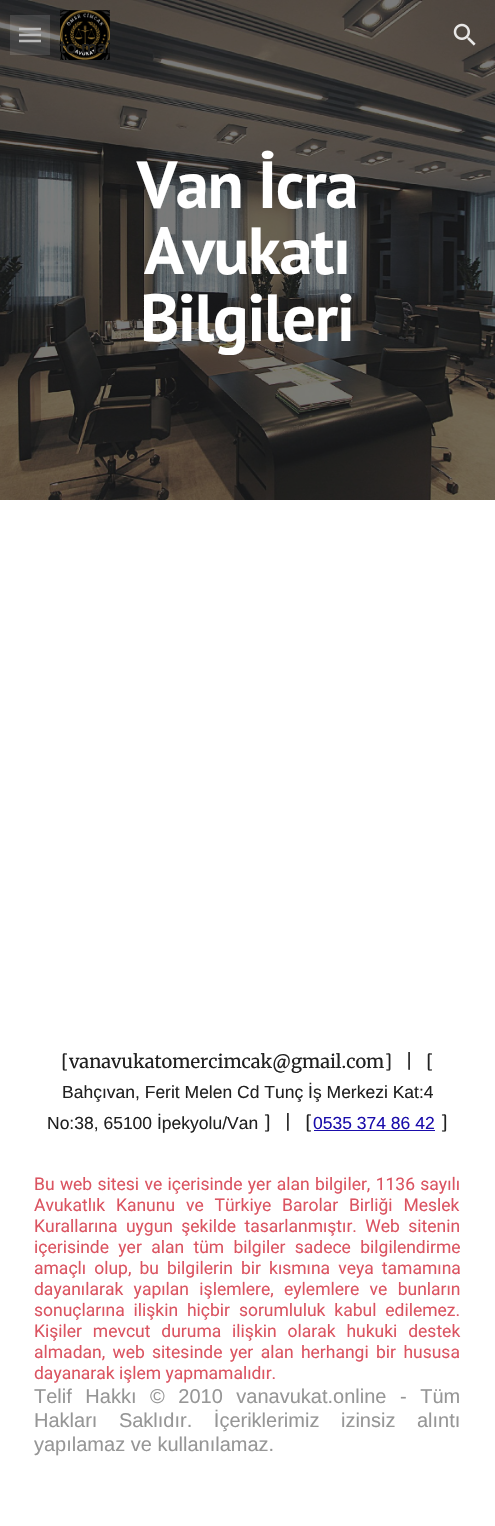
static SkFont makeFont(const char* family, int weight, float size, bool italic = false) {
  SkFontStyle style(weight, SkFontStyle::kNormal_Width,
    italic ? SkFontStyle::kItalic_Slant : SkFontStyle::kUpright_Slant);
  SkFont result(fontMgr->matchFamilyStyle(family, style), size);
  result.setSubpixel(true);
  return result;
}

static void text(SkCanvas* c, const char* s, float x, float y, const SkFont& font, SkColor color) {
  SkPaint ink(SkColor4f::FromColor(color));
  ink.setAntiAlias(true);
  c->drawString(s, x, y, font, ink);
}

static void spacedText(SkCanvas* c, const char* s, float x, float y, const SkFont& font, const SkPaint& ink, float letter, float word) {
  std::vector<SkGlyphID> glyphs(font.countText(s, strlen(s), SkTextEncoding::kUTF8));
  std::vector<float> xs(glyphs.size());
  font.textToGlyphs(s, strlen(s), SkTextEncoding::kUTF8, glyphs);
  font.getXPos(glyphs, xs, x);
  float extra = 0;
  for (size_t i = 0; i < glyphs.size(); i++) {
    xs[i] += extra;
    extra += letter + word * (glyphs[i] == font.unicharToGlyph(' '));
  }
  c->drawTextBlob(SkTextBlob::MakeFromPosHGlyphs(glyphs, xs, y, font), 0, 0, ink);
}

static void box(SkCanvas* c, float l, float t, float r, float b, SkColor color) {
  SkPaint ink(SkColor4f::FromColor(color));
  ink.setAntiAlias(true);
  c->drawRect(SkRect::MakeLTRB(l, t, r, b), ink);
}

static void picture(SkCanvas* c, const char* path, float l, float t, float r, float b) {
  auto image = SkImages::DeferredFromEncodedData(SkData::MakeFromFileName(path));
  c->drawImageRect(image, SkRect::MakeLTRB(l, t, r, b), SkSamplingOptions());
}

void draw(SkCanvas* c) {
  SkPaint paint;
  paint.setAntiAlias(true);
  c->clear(0xffffffff);
  picture(c, "img_03.png", 0, 0, 495, 500);
  picture(c, "img_01.png", 60, 10, 110, 60);
  SkFont face1 = makeFont("Google Sans", 500, 17.5f);
  paint.setColor(0xff212121);
  spacedText(c, "to mai", 59, 53, face1, paint, 0.25f, 0);
  paint.setStyle(SkPaint::kStroke_Style);
  paint.setStrokeWidth(2.5f);
  paint.setColor(0xffb2b2b2);
  c->drawPath(SkPathBuilder().moveTo(19, 29).lineTo(41, 29).moveTo(19, 35).lineTo(41, 35).moveTo(19, 41).lineTo(41, 41).detach(), paint);
  box(c, 10, 15, 50, 55, 0x1fffffff);
  picture(c, "img_02.png", 453, 23, 476, 46);
  SkFont face2 = makeFont("PT Sans", 700, 66.5f);
  paint.setStyle(SkPaint::kFill_Style);
  paint.setColor(0xffffffff);
  spacedText(c, "Van İcra", 137, 208, face2, paint, -1.25f, 0);
  spacedText(c, "Avukatı", 144, 274, face2, paint, -1.25f, 0);
  spacedText(c, "Bilgileri", 140, 341, face2, paint, -1.25f, 0);
  SkFont face3 = makeFont("Merriweather", 400, 18.3f);
  text(c, "[vanavukatomercimcak@gmail.com]   |", 61, 1068, face3, 0xff212121);
  text(c, "[", 426, 1068, face3, 0xff212121);
  SkFont face4 = makeFont("Liberation Sans", 400, 17.5f);
  text(c, "Bahçıvan, Ferit Melen Cd Tunç İş Merkezi Kat:4", 62, 1098, face4, 0xff212121);
  text(c, "No:38, 65100 İpekyolu/Van", 47, 1129, face4, 0xff212121);
  text(c, "]", 263, 1129, face3, 0xff212121);
  text(c, "|", 284, 1129, face3, 0xff212121);
  text(c, "[", 305, 1129, face3, 0xff212121);
  text(c, "0535 374 86 42", 313, 1129, face4, 0xff1a0dab);
  box(c, 314, 1130, 435, 1131, 0xff1a0dab);
  text(c, "]", 440, 1129, face3, 0xff212121);
  SkFont face5 = makeFont("Roboto", 400, 17.5f);
  paint.setColor(0xffdb5461);
  spacedText(c, "Bu web sitesi ve içerisinde yer alan bilgiler, 1136 sayılı", 34, 1190, face5, paint, 0, 1);
  spacedText(c, "Avukatlık Kanunu ve Türkiye Barolar Birliği Meslek", 34, 1211, face5, paint, 0, 6.5f);
  spacedText(c, "Kurallarına uygun şekilde tasarlanmıştır. Web sitenin", 34, 1232, face5, paint, 0, 4);
  spacedText(c, "içerisinde yer alan tüm bilgiler sadece bilgilendirme", 34, 1253, face5, paint, 0, 5);
  spacedText(c, "amaçlı olup, bu bilgilerin bir kısmına veya tamamına", 34, 1274, face5, paint, 0, 3.75f);
  spacedText(c, "dayanılarak yapılan işlemlere, eylemlere ve bunların", 34, 1295, face5, paint, 0, 6);
  spacedText(c, "sonuçlarına ilişkin hiçbir sorumluluk kabul edilemez.", 34, 1316, face5, paint, 0, 4.5f);
  spacedText(c, "Kişiler mevcut duruma ilişkin olarak hukuki destek", 34, 1337, face5, paint, 0, 6.5f);
  spacedText(c, "almadan, web sitesinde yer alan herhangi bir hususa", 34, 1358, face5, paint, 0, 3);
  text(c, "dayanarak işlem yapmamalıdır.", 34, 1379, face5, 0xffdb5461);
  SkFont face6 = makeFont("Liberation Sans", 400, 20);
  paint.setColor(0xff969696);
  spacedText(c, "Telif Hakkı © 2010 vanavukat.online - Tüm", 34, 1403, face6, paint, 0, 8);
  spacedText(c, "Hakları Saklıdır. İçeriklerimiz izinsiz alıntı", 34, 1427, face6, paint, 0, 16);
  text(c, "yapılamaz ve kullanılamaz.", 34, 1451, face6, 0xff969696);
}
